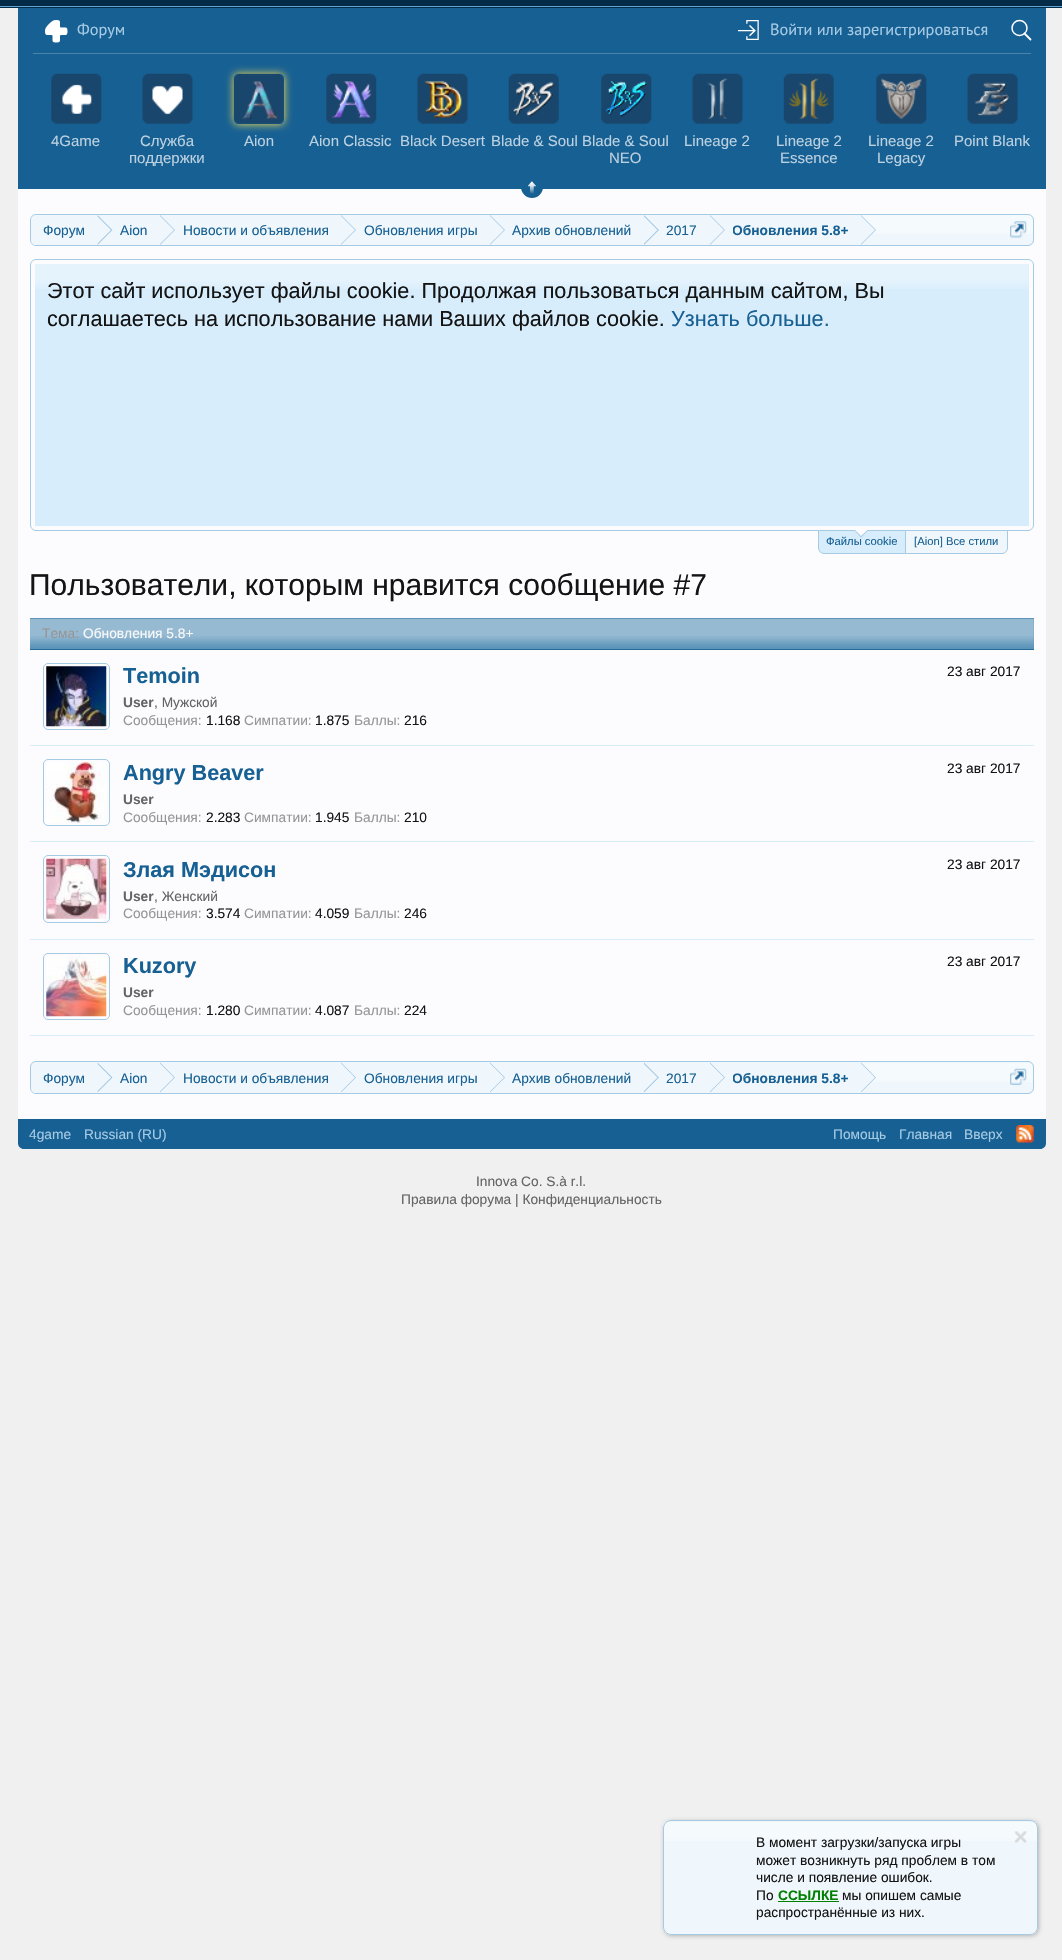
static SkFont makeFont(const char* family, int weight, float size, bool italic = false) {
  SkFontStyle style(weight, SkFontStyle::kNormal_Width,
    italic ? SkFontStyle::kItalic_Slant : SkFontStyle::kUpright_Slant);
  SkFont result(fontMgr->matchFamilyStyle(family, style), size);
  result.setSubpixel(true);
  return result;
}

static void text(SkCanvas* c, const char* s, float x, float y, const SkFont& font, SkColor color) {
  SkPaint ink(SkColor4f::FromColor(color));
  ink.setAntiAlias(true);
  c->drawString(s, x, y, font, ink);
}

static void box(SkCanvas* c, float l, float t, float r, float b, SkColor color) {
  SkPaint ink(SkColor4f::FromColor(color));
  ink.setAntiAlias(true);
  c->drawRect(SkRect::MakeLTRB(l, t, r, b), ink);
}

static void roundBox(SkCanvas* c, float l, float t, float r, float b, float radius, SkColor color) {
  SkPaint ink(SkColor4f::FromColor(color));
  ink.setAntiAlias(true);
  c->drawRoundRect(SkRect::MakeLTRB(l, t, r, b), radius, radius, ink);
}

static void picture(SkCanvas* c, const char* path, float l, float t, float r, float b) {
  auto image = SkImages::DeferredFromEncodedData(SkData::MakeFromFileName(path));
  c->drawImageRect(image, SkRect::MakeLTRB(l, t, r, b), SkSamplingOptions());
}

void draw(SkCanvas* c) {
  SkPaint paint;
  paint.setAntiAlias(true);
  c->clear(0xfff0f0f0);
  box(c, 0, 0, 1062, 8, 0xff032a46);
  box(c, 0, 6, 1062, 7, 0xff65a5d1);
  box(c, 18, 8, 1046, 189, 0xff176093);
  box(c, 33, 53, 1031, 54, 0xff4c84ac);
  picture(c, "img_01.png", 45, 20, 68, 43);
  SkFont face1 = makeFont("PT Sans", 400, 16.25f);
  text(c, "Форум", 77, 35, face1, 0xffa5cae4);
  picture(c, "img_02.png", 738, 20, 759, 40);
  text(c, "Войти или зарегистрироваться", 770, 35, face1, 0xffa5cae4);
  paint.setStyle(SkPaint::kStroke_Style);
  paint.setStrokeWidth(1.5f);
  paint.setColor(0xffffffff);
  c->drawCircle(1019.5f, 28, 7.5f, paint);
  paint.setStrokeWidth(1.8f);
  paint.setStrokeCap(SkPaint::kRound_Cap);
  c->drawPath(SkPathBuilder().moveTo(1024.5f, 33.5f).lineTo(1030.5f, 39.5f).detach(), paint);
  box(c, 18, 189, 1046, 1119, 0xfffcfcff);
  paint.setStyle(SkPaint::kFill_Style);
  paint.setColor(0xff176093);
  c->drawCircle(532, 187, 11, paint);
  picture(c, "img_03.png", 528, 181, 536, 194);
  picture(c, "img_04.png", 51, 73, 102, 124);
  SkFont face2 = makeFont("Liberation Sans", 400, 15);
  text(c, "4Game", 51, 146, face2, 0xffbcd1e0);
  picture(c, "img_05.png", 142, 73, 193, 124);
  text(c, "Служба", 140, 146, face2, 0xffbcd1e0);
  text(c, "поддержки", 129, 163, face2, 0xffbcd1e0);
  c->save();
  c->clipPath(SkPathBuilder(SkPathFillType::kEvenOdd).moveTo(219, 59).lineTo(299, 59).lineTo(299, 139).lineTo(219, 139).close().moveTo(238, 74).lineTo(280, 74).cubicTo(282, 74, 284, 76, 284, 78).lineTo(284, 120).cubicTo(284, 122, 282, 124, 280, 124).lineTo(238, 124).cubicTo(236, 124, 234, 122, 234, 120).lineTo(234, 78).cubicTo(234, 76, 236, 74, 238, 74).close().detach(), true);
  paint.setColor(0xfffde04d);
  paint.setMaskFilter(SkMaskFilter::MakeBlur(kNormal_SkBlurStyle, 4.5f));
  c->drawRoundRect(SkRect::MakeLTRB(234, 74, 284, 124), 4, 4, paint);
  paint.setMaskFilter(nullptr);
  c->restore();
  picture(c, "img_06.png", 233, 73, 284, 124);
  text(c, "Aion", 244, 146, face2, 0xffbcd1e0);
  picture(c, "img_07.png", 326, 73, 377, 124);
  text(c, "Aion Classic", 309, 146, face2, 0xffbcd1e0);
  picture(c, "img_08.png", 417, 73, 468, 124);
  text(c, "Black Desert", 400, 146, face2, 0xffbcd1e0);
  picture(c, "img_09.png", 508, 73, 559, 124);
  text(c, "Blade & Soul", 491, 146, face2, 0xffbcd1e0);
  picture(c, "img_10.png", 601, 73, 652, 124);
  text(c, "Blade & Soul", 582, 146, face2, 0xffbcd1e0);
  text(c, "NEO", 609, 163, face2, 0xffbcd1e0);
  picture(c, "img_11.png", 692, 73, 743, 124);
  text(c, "Lineage 2", 684, 146, face2, 0xffbcd1e0);
  picture(c, "img_12.png", 783, 73, 834, 124);
  text(c, "Lineage 2", 776, 146, face2, 0xffbcd1e0);
  text(c, "Essence", 780, 163, face2, 0xffbcd1e0);
  picture(c, "img_13.png", 876, 73, 927, 124);
  text(c, "Lineage 2", 868, 146, face2, 0xffbcd1e0);
  text(c, "Legacy", 877, 163, face2, 0xffbcd1e0);
  picture(c, "img_14.png", 967, 73, 1018, 124);
  text(c, "Point Blank", 954, 146, face2, 0xffbcd1e0);
  roundBox(c, 30, 214, 1034, 246, 6, 0xfff0f7fc);
  picture(c, "img_15.png", 30, 215, 1033, 234);
  paint.setStyle(SkPaint::kStroke_Style);
  paint.setStrokeWidth(1);
  paint.setStrokeCap(SkPaint::kButt_Cap);
  paint.setColor(0xffa5cae4);
  c->drawRoundRect(SkRect::MakeLTRB(30.5f, 214.5f, 1033.5f, 245.5f), 5.5f, 5.5f, paint);
  c->save();
  c->clipPath(SkPathBuilder().moveTo(36, 215).lineTo(1028, 215).cubicTo(1031, 215, 1033, 217, 1033, 220).lineTo(1033, 240).cubicTo(1033, 243, 1031, 245, 1028, 245).lineTo(36, 245).cubicTo(33, 245, 31, 243, 31, 240).lineTo(31, 220).cubicTo(31, 217, 33, 215, 36, 215).close().detach(), true);
  paint.setStyle(SkPaint::kFill_Style);
  paint.setColor(0xfff0f7fc);
  c->drawPath(SkPathBuilder().moveTo(37, 215).lineTo(98, 215).lineTo(98, 246).lineTo(37, 246).cubicTo(33.5f, 246, 31, 243.5f, 31, 240).lineTo(31, 221).cubicTo(31, 217.5f, 33.5f, 215, 37, 215).close().detach(), paint);
  c->restore();
  SkFont face3 = makeFont("Liberation Sans", 400, 13.75f);
  text(c, "Форум", 43, 235, face3, 0xff176093);
  box(c, 98, 215, 861, 234, 0xfff0f7fc);
  paint.setColor(0xffa5cae4);
  c->drawPath(SkPathBuilder().moveTo(97.5f, 245).lineTo(97.5f, 215).lineTo(112.5f, 230).close().detach(), paint);
  paint.setColor(0xfff0f7fc);
  c->drawPath(SkPathBuilder().moveTo(96, 245).lineTo(96, 215).lineTo(111, 230).close().detach(), paint);
  text(c, "Aion", 120, 235, face3, 0xff176093);
  paint.setColor(0xffa5cae4);
  c->drawPath(SkPathBuilder().moveTo(160, 245).lineTo(160, 215).lineTo(175, 230).close().detach(), paint);
  paint.setColor(0xfff0f7fc);
  c->drawPath(SkPathBuilder().moveTo(159, 245).lineTo(159, 215).lineTo(174, 230).close().detach(), paint);
  text(c, "Новости и объявления", 183, 235, face3, 0xff176093);
  paint.setColor(0xffa5cae4);
  c->drawPath(SkPathBuilder().moveTo(341, 245).lineTo(341, 215).lineTo(356, 230).close().detach(), paint);
  paint.setColor(0xfff0f7fc);
  c->drawPath(SkPathBuilder().moveTo(340, 245).lineTo(340, 215).lineTo(355, 230).close().detach(), paint);
  text(c, "Обновления игры", 364, 235, face3, 0xff176093);
  paint.setColor(0xffa5cae4);
  c->drawPath(SkPathBuilder().moveTo(490, 245).lineTo(490, 215).lineTo(505, 230).close().detach(), paint);
  paint.setColor(0xfff0f7fc);
  c->drawPath(SkPathBuilder().moveTo(489, 245).lineTo(489, 215).lineTo(504, 230).close().detach(), paint);
  text(c, "Архив обновлений", 512, 235, face3, 0xff176093);
  paint.setColor(0xffa5cae4);
  c->drawPath(SkPathBuilder().moveTo(644, 245).lineTo(644, 215).lineTo(659, 230).close().detach(), paint);
  paint.setColor(0xfff0f7fc);
  c->drawPath(SkPathBuilder().moveTo(642.5f, 245).lineTo(642.5f, 215).lineTo(657.5f, 230).close().detach(), paint);
  text(c, "2017", 666, 235, face3, 0xff176093);
  paint.setColor(0xffa5cae4);
  c->drawPath(SkPathBuilder().moveTo(710, 245).lineTo(710, 215).lineTo(725, 230).close().detach(), paint);
  paint.setColor(0xfff0f7fc);
  c->drawPath(SkPathBuilder().moveTo(709, 245).lineTo(709, 215).lineTo(724, 230).close().detach(), paint);
  c->save();
  c->clipRect(SkRect::MakeLTRB(733, 215, 849, 245));
  SkFont face4 = makeFont("Liberation Sans", 700, 13.75f);
  text(c, "Обновления 5.8+", 732, 235, face4, 0xff176093);
  c->restore();
  paint.setColor(0xffa5cae4);
  c->drawPath(SkPathBuilder().moveTo(861, 245).lineTo(861, 215).lineTo(876, 230).close().detach(), paint);
  paint.setColor(0xfff0f7fc);
  c->drawPath(SkPathBuilder().moveTo(860, 245).lineTo(860, 215).lineTo(875, 230).close().detach(), paint);
  picture(c, "img_16.png", 1010, 221, 1027, 238);
  paint.setStyle(SkPaint::kStroke_Style);
  paint.setColor(0xffa5cae4);
  c->drawRoundRect(SkRect::MakeLTRB(30.5f, 259.5f, 1033.5f, 530.5f), 5.5f, 5.5f, paint);
  box(c, 35, 264, 1029, 526, 0xffd7edfc);
  picture(c, "img_17.png", 35, 264, 1029, 289);
  SkFont face5 = makeFont("Liberation Sans", 400, 21.65f);
  text(c, "Этот сайт использует файлы cookie. Продолжая пользоваться данным сайтом, Вы", 47, 298, face5, 0xff141414);
  text(c, "соглашаетесь на использование нами Ваших файлов cookie.", 47, 326, face5, 0xff141414);
  text(c, "Узнать больше.", 671, 326, face5, 0xff176093);
  paint.setStyle(SkPaint::kFill_Style);
  paint.setColor(0xffd7edfc);
  c->drawPath(SkPathBuilder().moveTo(818.5f, 530.5f).lineTo(905.5f, 530.5f).lineTo(905.5f, 553.5f).lineTo(824, 553.5f).cubicTo(821, 553.5f, 818.5f, 551, 818.5f, 548).close().detach(), paint);
  paint.setStyle(SkPaint::kStroke_Style);
  paint.setColor(0xffa5cae4);
  c->drawPath(SkPathBuilder().moveTo(818.5f, 530.5f).lineTo(905.5f, 530.5f).lineTo(905.5f, 553.5f).lineTo(824, 553.5f).cubicTo(821, 553.5f, 818.5f, 551, 818.5f, 548).close().detach(), paint);
  SkFont face6 = makeFont("Liberation Sans", 400, 11.25f);
  text(c, "Файлы cookie", 826, 545, face6, 0xff176093);
  paint.setStyle(SkPaint::kFill_Style);
  c->drawPath(SkPathBuilder().moveTo(855, 531).lineTo(867.5f, 531).lineTo(861, 537.5f).close().detach(), paint);
  paint.setColor(0xfffcfcff);
  c->drawPath(SkPathBuilder().moveTo(855, 530).lineTo(867.5f, 530).lineTo(861, 536).close().detach(), paint);
  paint.setColor(0xfff0f7fc);
  c->drawPath(SkPathBuilder().moveTo(905.5f, 530.5f).lineTo(1007.5f, 530.5f).lineTo(1007.5f, 548).cubicTo(1007.5f, 551, 1005, 553.5f, 1002, 553.5f).lineTo(905.5f, 553.5f).close().detach(), paint);
  paint.setStyle(SkPaint::kStroke_Style);
  paint.setColor(0xffa5cae4);
  c->drawPath(SkPathBuilder().moveTo(905.5f, 530.5f).lineTo(1007.5f, 530.5f).lineTo(1007.5f, 548).cubicTo(1007.5f, 551, 1005, 553.5f, 1002, 553.5f).lineTo(905.5f, 553.5f).close().detach(), paint);
  text(c, "[Aion] Все стили", 914, 545, face6, 0xff176093);
  SkFont face7 = makeFont("Liberation Sans", 400, 30);
  text(c, "Пользователи, которым нравится сообщение #7", 29, 595, face7, 0xff141414);
  box(c, 30, 618, 1034, 649, 0xff5d95ba);
  picture(c, "img_18.png", 30, 619, 1034, 647);
  box(c, 30, 649, 1034, 650, 0xff246b99);
  text(c, "Тема:", 42, 638, face3, 0xff969696);
  text(c, "Обновления 5.8+", 83, 638, face3, 0xfff9f9f9);
  box(c, 30, 745, 1034, 746, 0xffd7edfc);
  picture(c, "img_19.png", 46, 666, 107, 727);
  c->drawRoundRect(SkRect::MakeLTRB(43.5f, 663.5f, 109.5f, 729.5f), 4.5f, 4.5f, paint);
  SkFont face8 = makeFont("Liberation Sans", 700, 21.65f);
  text(c, "Temoin", 123, 683, face8, 0xff176093);
  text(c, "User", 123, 707, face4, 0xff646464);
  text(c, ", Мужской", 154, 707, face3, 0xff646464);
  text(c, "Сообщения:", 123, 725, face3, 0xff969696);
  text(c, "1.168", 206, 725, face3, 0xff141414);
  text(c, "Симпатии:", 244, 725, face3, 0xff969696);
  text(c, "1.875", 315, 725, face3, 0xff141414);
  text(c, "Баллы:", 354, 725, face3, 0xff969696);
  text(c, "216", 404, 725, face3, 0xff141414);
  text(c, "23 авг 2017", 947, 676, face3, 0xff141414);
  box(c, 30, 841, 1034, 842, 0xffd7edfc);
  picture(c, "img_20.png", 46, 762, 106, 823);
  c->drawRoundRect(SkRect::MakeLTRB(43.5f, 759.5f, 109.5f, 825.5f), 4.5f, 4.5f, paint);
  text(c, "Angry Beaver", 123, 780, face8, 0xff176093);
  text(c, "User", 123, 804, face4, 0xff646464);
  text(c, "Сообщения:", 123, 822, face3, 0xff969696);
  text(c, "2.283", 206, 822, face3, 0xff141414);
  text(c, "Симпатии:", 244, 822, face3, 0xff969696);
  text(c, "1.945", 315, 822, face3, 0xff141414);
  text(c, "Баллы:", 354, 822, face3, 0xff969696);
  text(c, "210", 404, 822, face3, 0xff141414);
  text(c, "23 авг 2017", 947, 773, face3, 0xff141414);
  box(c, 30, 939, 1034, 940, 0xffd7edfc);
  picture(c, "img_21.png", 46, 858, 107, 919);
  c->drawRoundRect(SkRect::MakeLTRB(43.5f, 855.5f, 109.5f, 922.5f), 4.5f, 4.5f, paint);
  text(c, "Злая Мэдисон", 123, 877, face8, 0xff176093);
  text(c, "User", 123, 901, face4, 0xff646464);
  text(c, ", Женский", 154, 901, face3, 0xff646464);
  text(c, "Сообщения:", 123, 918, face3, 0xff969696);
  text(c, "3.574", 206, 918, face3, 0xff141414);
  text(c, "Симпатии:", 244, 918, face3, 0xff969696);
  text(c, "4.059", 315, 918, face3, 0xff141414);
  text(c, "Баллы:", 354, 918, face3, 0xff969696);
  text(c, "246", 404, 918, face3, 0xff141414);
  text(c, "23 авг 2017", 947, 869, face3, 0xff141414);
  box(c, 30, 1035, 1034, 1036, 0xffd7edfc);
  picture(c, "img_22.png", 46, 956, 107, 1017);
  c->drawRoundRect(SkRect::MakeLTRB(43.5f, 953.5f, 109.5f, 1019.5f), 4.5f, 4.5f, paint);
  text(c, "Kuzory", 123, 973, face8, 0xff176093);
  text(c, "User", 123, 997, face4, 0xff646464);
  text(c, "Сообщения:", 123, 1015, face3, 0xff969696);
  text(c, "1.280", 206, 1015, face3, 0xff141414);
  text(c, "Симпатии:", 244, 1015, face3, 0xff969696);
  text(c, "4.087", 315, 1015, face3, 0xff141414);
  text(c, "Баллы:", 354, 1015, face3, 0xff969696);
  text(c, "224", 404, 1015, face3, 0xff141414);
  text(c, "23 авг 2017", 947, 966, face3, 0xff141414);
  roundBox(c, 30, 1061, 1034, 1094, 6, 0xfff0f7fc);
  picture(c, "img_23.png", 30, 1063, 1033, 1082);
  c->drawRoundRect(SkRect::MakeLTRB(30.5f, 1061.5f, 1033.5f, 1093.5f), 5.5f, 5.5f, paint);
  c->save();
  c->clipPath(SkPathBuilder().moveTo(36, 1063).lineTo(1028, 1063).cubicTo(1031, 1063, 1033, 1065, 1033, 1068).lineTo(1033, 1088).cubicTo(1033, 1091, 1031, 1093, 1028, 1093).lineTo(36, 1093).cubicTo(33, 1093, 31, 1091, 31, 1088).lineTo(31, 1068).cubicTo(31, 1065, 33, 1063, 36, 1063).close().detach(), true);
  paint.setStyle(SkPaint::kFill_Style);
  paint.setColor(0xfff0f7fc);
  c->drawPath(SkPathBuilder().moveTo(37, 1063).lineTo(98, 1063).lineTo(98, 1094).lineTo(37, 1094).cubicTo(33.5f, 1094, 31, 1091.5f, 31, 1088).lineTo(31, 1069).cubicTo(31, 1065.5f, 33.5f, 1063, 37, 1063).close().detach(), paint);
  c->restore();
  text(c, "Форум", 43, 1083, face3, 0xff176093);
  box(c, 98, 1063, 861, 1082, 0xfff0f7fc);
  paint.setColor(0xffa5cae4);
  c->drawPath(SkPathBuilder().moveTo(97.5f, 1092.5f).lineTo(97.5f, 1062.5f).lineTo(112.5f, 1077.5f).close().detach(), paint);
  paint.setColor(0xfff0f7fc);
  c->drawPath(SkPathBuilder().moveTo(96, 1092.5f).lineTo(96, 1062.5f).lineTo(111, 1077.5f).close().detach(), paint);
  text(c, "Aion", 120, 1083, face3, 0xff176093);
  paint.setColor(0xffa5cae4);
  c->drawPath(SkPathBuilder().moveTo(160, 1092.5f).lineTo(160, 1062.5f).lineTo(175, 1077.5f).close().detach(), paint);
  paint.setColor(0xfff0f7fc);
  c->drawPath(SkPathBuilder().moveTo(159, 1092.5f).lineTo(159, 1062.5f).lineTo(174, 1077.5f).close().detach(), paint);
  text(c, "Новости и объявления", 183, 1083, face3, 0xff176093);
  paint.setColor(0xffa5cae4);
  c->drawPath(SkPathBuilder().moveTo(341, 1092.5f).lineTo(341, 1062.5f).lineTo(356, 1077.5f).close().detach(), paint);
  paint.setColor(0xfff0f7fc);
  c->drawPath(SkPathBuilder().moveTo(340, 1092.5f).lineTo(340, 1062.5f).lineTo(355, 1077.5f).close().detach(), paint);
  text(c, "Обновления игры", 364, 1083, face3, 0xff176093);
  paint.setColor(0xffa5cae4);
  c->drawPath(SkPathBuilder().moveTo(490, 1092.5f).lineTo(490, 1062.5f).lineTo(505, 1077.5f).close().detach(), paint);
  paint.setColor(0xfff0f7fc);
  c->drawPath(SkPathBuilder().moveTo(489, 1092.5f).lineTo(489, 1062.5f).lineTo(504, 1077.5f).close().detach(), paint);
  text(c, "Архив обновлений", 512, 1083, face3, 0xff176093);
  paint.setColor(0xffa5cae4);
  c->drawPath(SkPathBuilder().moveTo(644, 1092.5f).lineTo(644, 1062.5f).lineTo(659, 1077.5f).close().detach(), paint);
  paint.setColor(0xfff0f7fc);
  c->drawPath(SkPathBuilder().moveTo(642.5f, 1092.5f).lineTo(642.5f, 1062.5f).lineTo(657.5f, 1077.5f).close().detach(), paint);
  text(c, "2017", 666, 1083, face3, 0xff176093);
  paint.setColor(0xffa5cae4);
  c->drawPath(SkPathBuilder().moveTo(710, 1092.5f).lineTo(710, 1062.5f).lineTo(725, 1077.5f).close().detach(), paint);
  paint.setColor(0xfff0f7fc);
  c->drawPath(SkPathBuilder().moveTo(709, 1092.5f).lineTo(709, 1062.5f).lineTo(724, 1077.5f).close().detach(), paint);
  c->save();
  c->clipRect(SkRect::MakeLTRB(733, 1063, 849, 1093));
  text(c, "Обновления 5.8+", 732, 1083, face4, 0xff176093);
  c->restore();
  paint.setColor(0xffa5cae4);
  c->drawPath(SkPathBuilder().moveTo(861, 1092.5f).lineTo(861, 1062.5f).lineTo(876, 1077.5f).close().detach(), paint);
  paint.setColor(0xfff0f7fc);
  c->drawPath(SkPathBuilder().moveTo(860, 1092.5f).lineTo(860, 1062.5f).lineTo(875, 1077.5f).close().detach(), paint);
  picture(c, "img_24.png", 1010, 1068, 1027, 1085);
  paint.setColor(0x40000000);
  paint.setMaskFilter(SkMaskFilter::MakeBlur(kNormal_SkBlurStyle, 2));
  c->drawRoundRect(SkRect::MakeLTRB(664, 1821, 1039, 1936), 8, 8, paint);
  paint.setMaskFilter(nullptr);
  roundBox(c, 663, 1820, 1038, 1935, 8, 0xfff0f7fc);
  picture(c, "img_25.png", 663, 1822, 1037, 1841);
  paint.setStyle(SkPaint::kStroke_Style);
  paint.setColor(0xffa5cae4);
  c->drawRoundRect(SkRect::MakeLTRB(663.5f, 1820.5f, 1037.5f, 1934.5f), 7.5f, 7.5f, paint);
  text(c, "В момент загрузки/запуска игры", 756, 1847, face3, 0xff141414);
  text(c, "может возникнуть ряд проблем в том", 756, 1865, face3, 0xff141414);
  text(c, "числе и появление ошибок.", 756, 1882, face3, 0xff141414);
  text(c, "По", 756, 1900, face3, 0xff141414);
  text(c, "ССЫЛКЕ", 778, 1900, face4, 0xff008000);
  box(c, 778, 1901, 839, 1902, 0xff008000);
  text(c, "мы опишем самые", 842, 1900, face3, 0xff141414);
  text(c, "распространённые из них.", 756, 1917, face3, 0xff141414);
  picture(c, "img_26.png", 1014, 1831, 1027, 1843);
  paint.setStyle(SkPaint::kFill_Style);
  paint.setColor(0xff176093);
  c->drawPath(SkPathBuilder().moveTo(18, 1119).lineTo(1046, 1119).lineTo(1046, 1143).cubicTo(1046, 1146.5f, 1043.5f, 1149, 1040, 1149).lineTo(24, 1149).cubicTo(20.5f, 1149, 18, 1146.5f, 18, 1143).close().detach(), paint);
  text(c, "4game", 29, 1139, face3, 0xffa5cae4);
  text(c, "Russian (RU)", 84, 1139, face3, 0xffa5cae4);
  text(c, "Помощь", 833, 1139, face3, 0xffa5cae4);
  text(c, "Главная", 899, 1139, face3, 0xffa5cae4);
  text(c, "Вверх", 964, 1139, face3, 0xffa5cae4);
  picture(c, "img_27.png", 1016, 1125, 1034, 1143);
  text(c, "Innova Co. S.à r.l.", 476, 1186, face3, 0xff646464);
  text(c, "Правила форума | Конфиденциальность", 401, 1204, face3, 0xff646464);
}
